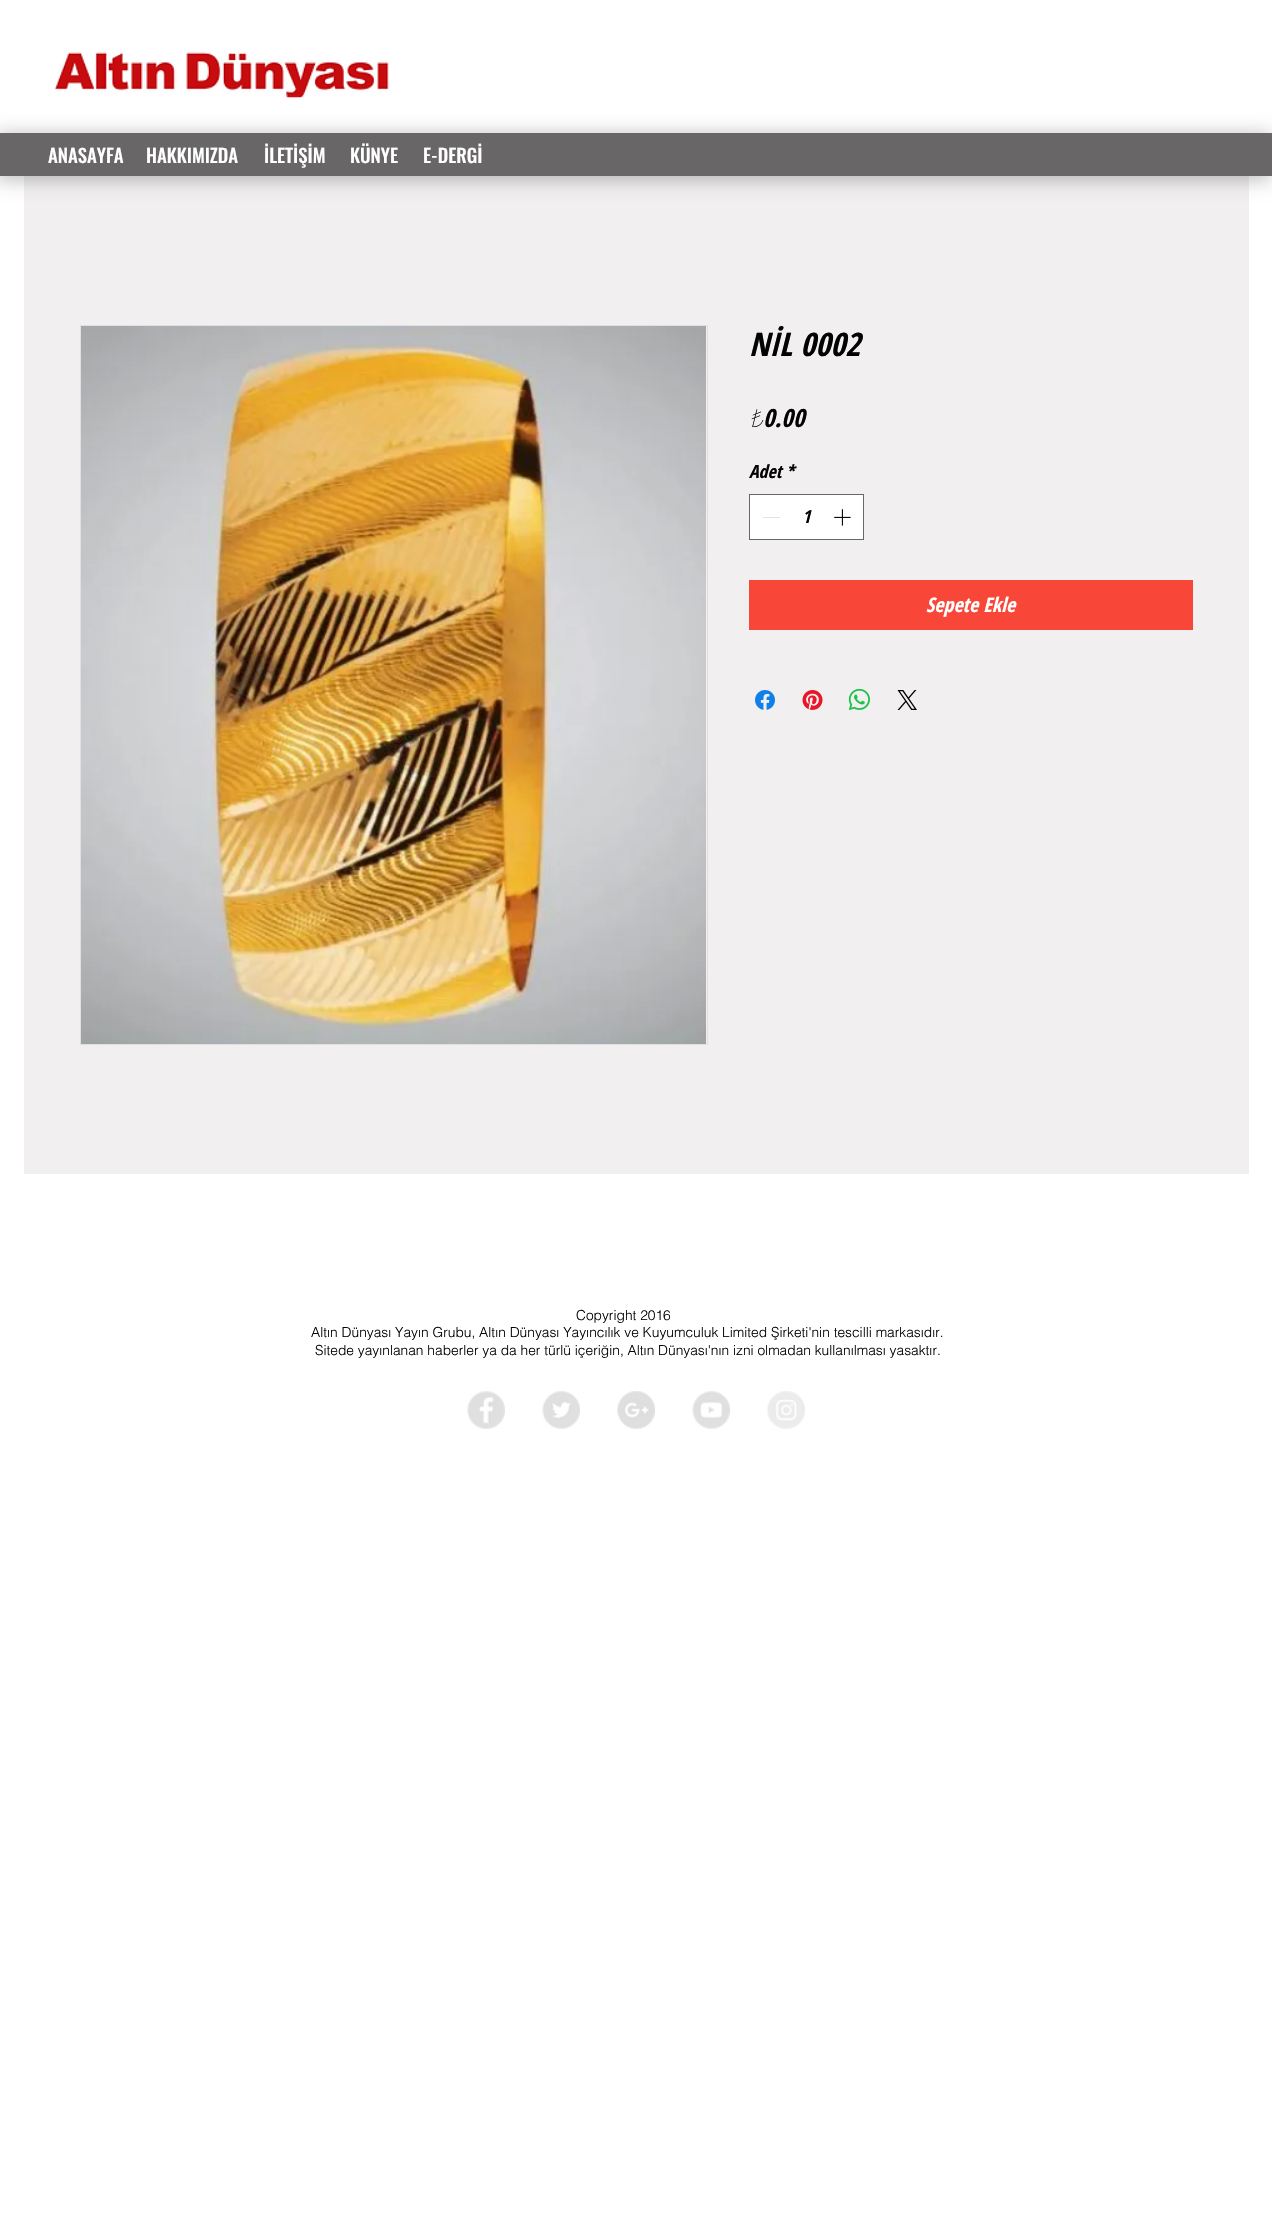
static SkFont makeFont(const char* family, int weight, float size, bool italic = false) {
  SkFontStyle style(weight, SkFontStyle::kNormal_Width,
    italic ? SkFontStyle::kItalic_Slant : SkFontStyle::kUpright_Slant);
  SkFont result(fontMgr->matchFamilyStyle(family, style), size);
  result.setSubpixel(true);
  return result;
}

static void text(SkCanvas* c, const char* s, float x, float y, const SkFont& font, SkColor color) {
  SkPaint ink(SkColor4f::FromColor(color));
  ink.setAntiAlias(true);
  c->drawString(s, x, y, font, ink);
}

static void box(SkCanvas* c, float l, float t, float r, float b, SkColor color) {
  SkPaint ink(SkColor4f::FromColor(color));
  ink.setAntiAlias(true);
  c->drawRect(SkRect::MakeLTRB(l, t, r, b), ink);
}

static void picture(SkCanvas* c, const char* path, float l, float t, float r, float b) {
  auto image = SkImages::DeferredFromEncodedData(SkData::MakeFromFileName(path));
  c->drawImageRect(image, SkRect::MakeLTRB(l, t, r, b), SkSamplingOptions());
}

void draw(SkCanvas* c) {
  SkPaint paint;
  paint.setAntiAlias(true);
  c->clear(0xffffffff);
  box(c, 0, 133, 1272, 176, 0xff686666);
  picture(c, "img_01.png", 54, 52, 389, 98);
  box(c, 24, 176, 1249, 1174, 0xfff1efef);
  c->save();
  c->clipPath(SkPathBuilder(SkPathFillType::kEvenOdd).moveTo(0, 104).lineTo(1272, 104).lineTo(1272, 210).lineTo(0, 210).close().moveTo(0, 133).lineTo(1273, 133).lineTo(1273, 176).lineTo(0, 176).close().detach(), true);
  paint.setColor(0x40000000);
  paint.setMaskFilter(SkMaskFilter::MakeBlur(kNormal_SkBlurStyle, 9.5f));
  c->drawRect(SkRect::MakeLTRB(-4, 134, 1271, 180), paint);
  paint.setMaskFilter(nullptr);
  c->restore();
  SkFont face1 = makeFont("Oswald", 500, 18.75f);
  text(c, "ANASAYFA", 48, 163, face1, 0xffffffff);
  text(c, "HAKKIMIZDA", 146, 163, face1, 0xffffffff);
  text(c, "İLETİŞİM", 264, 163, face1, 0xffffffff);
  text(c, "KÜNYE", 350, 163, face1, 0xffffffff);
  text(c, "E-DERGİ", 423, 163, face1, 0xffffffff);
  paint.setStyle(SkPaint::kStroke_Style);
  paint.setStrokeWidth(1);
  paint.setColor(0xffe2dfdf);
  c->drawRect(SkRect::MakeLTRB(80.5f, 325.5f, 707.5f, 1044.5f), paint);
  picture(c, "img_02.png", 81, 326, 706, 1044);
  SkFont face2 = makeFont("Open Sans Condensed", 700, 32.5f, true);
  text(c, "NİL 0002", 749, 356, face2, 0xff030303);
  SkFont face3 = makeFont("Noto Sans", 100, 25, true);
  text(c, "₺", 749, 427, face3, 0xff030303);
  SkFont face4 = makeFont("Open Sans Condensed", 700, 25, true);
  text(c, "0.00", 763, 427, face4, 0xff030303);
  SkFont face5 = makeFont("Open Sans Condensed", 700, 18, true);
  text(c, "Adet", 749, 478, face5, 0xff030303);
  text(c, "*", 786, 478, face5, 0xff030303);
  paint.setStyle(SkPaint::kFill_Style);
  paint.setColor(0xffffffff);
  c->drawRect(SkRect::MakeLTRB(749.5f, 494.5f, 863.5f, 539.5f), paint);
  paint.setStyle(SkPaint::kStroke_Style);
  paint.setColor(0xff686868);
  c->drawRect(SkRect::MakeLTRB(749.5f, 494.5f, 863.5f, 539.5f), paint);
  box(c, 763, 517, 780, 518, 0xffe3e3e3);
  text(c, "1", 802, 523, face5, 0xff030303);
  picture(c, "img_03.png", 834, 509, 851, 526);
  box(c, 749, 580, 1193, 630, 0xfff84738);
  SkFont face6 = makeFont("Open Sans Condensed", 700, 20, true);
  text(c, "Sepete Ekle", 926, 612, face6, 0xffffffff);
  picture(c, "img_04.png", 755, 690, 775, 710);
  picture(c, "img_05.png", 802, 690, 823, 710);
  picture(c, "img_06.png", 848, 688, 870, 710);
  picture(c, "img_07.png", 897, 690, 917, 710);
  SkFont face7 = makeFont("helvetica", 300, 13.75f);
  text(c, "Copyright 2016", 576, 1320, face7, 0xff030303);
  text(c, "Altın Dünyası Yayın Grubu, Altın Dünyası Yayıncılık ve Kuyumculuk Limited Şirketi'nin tescilli markasıdır.", 311, 1337, face7, 0xff030303);
  text(c, "Sitede yayınlanan haberler ya da her türlü içeriğin, Altın Dünyası'nın izni olmadan kullanılması yasaktır.", 315, 1355, face7, 0xff030303);
  picture(c, "img_08.png", 467, 1391, 505, 1429);
  picture(c, "img_09.png", 542, 1391, 580, 1429);
  picture(c, "img_10.png", 617, 1391, 655, 1429);
  picture(c, "img_11.png", 692, 1391, 730, 1429);
  picture(c, "img_12.png", 767, 1391, 805, 1429);
}
